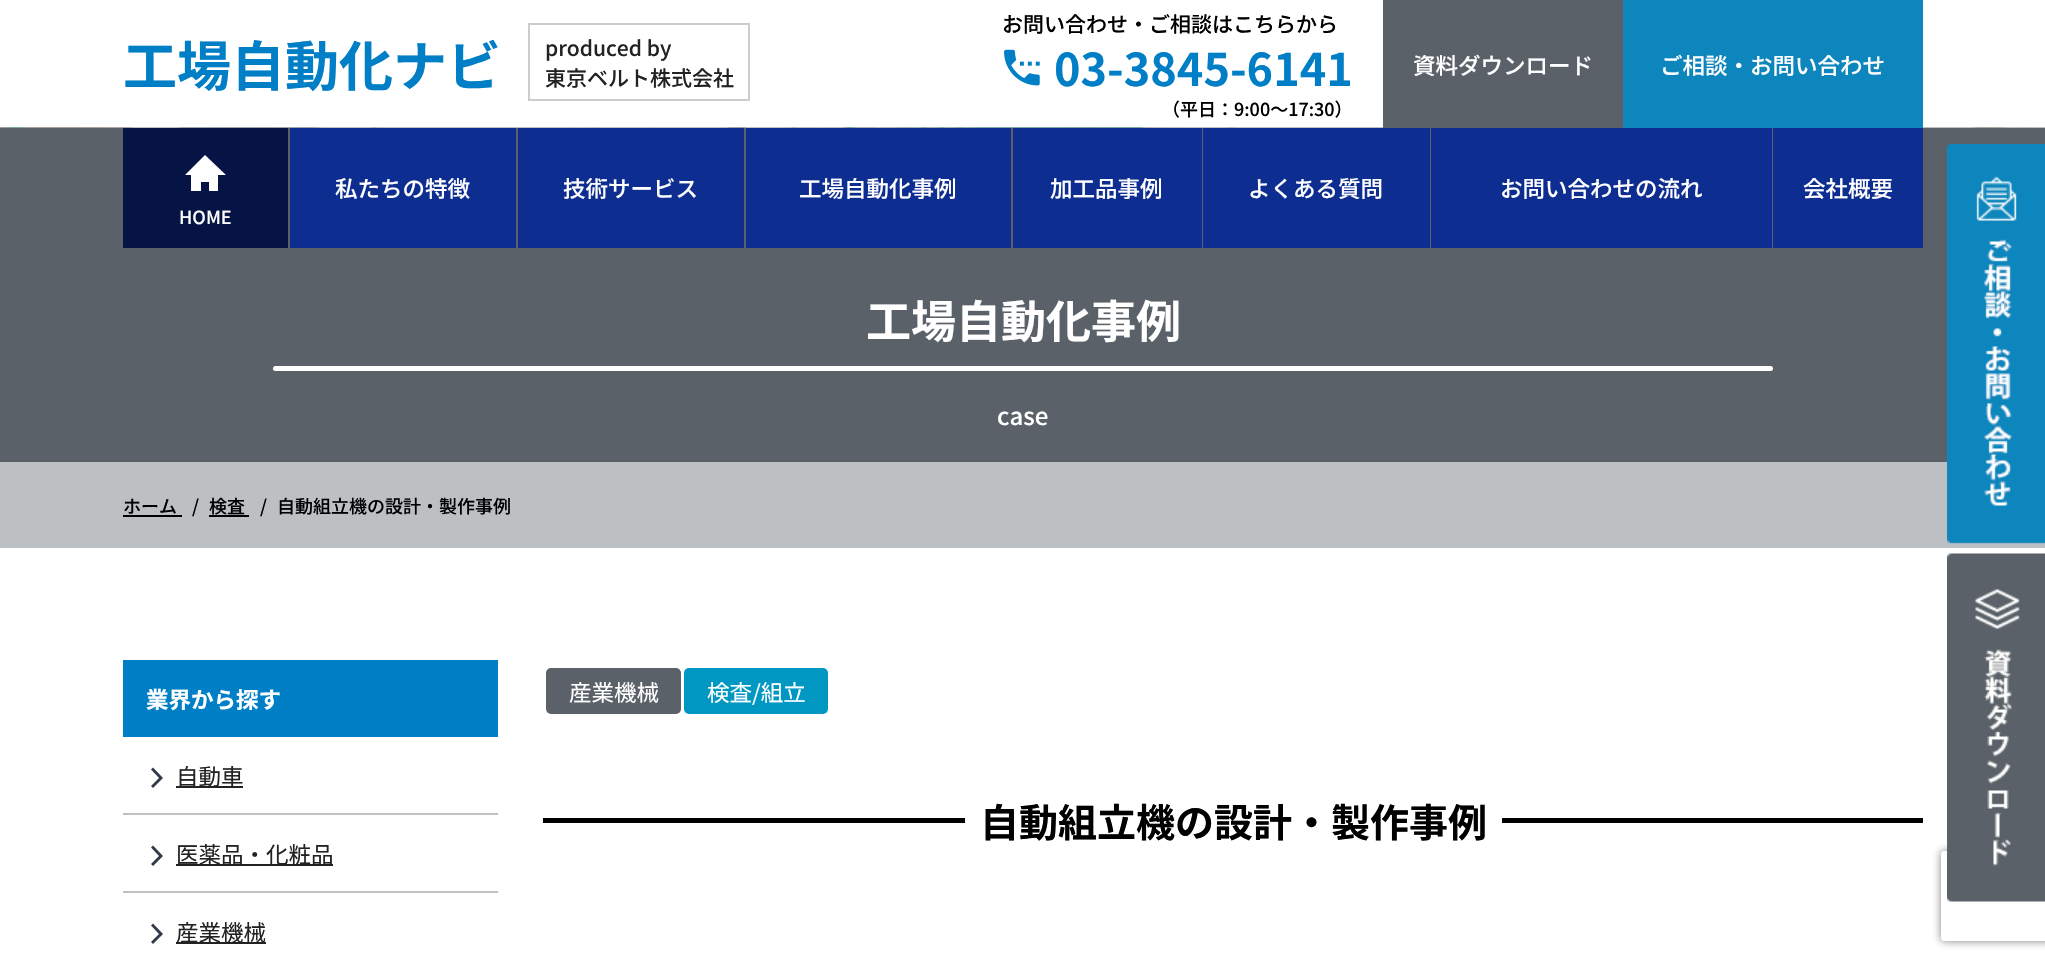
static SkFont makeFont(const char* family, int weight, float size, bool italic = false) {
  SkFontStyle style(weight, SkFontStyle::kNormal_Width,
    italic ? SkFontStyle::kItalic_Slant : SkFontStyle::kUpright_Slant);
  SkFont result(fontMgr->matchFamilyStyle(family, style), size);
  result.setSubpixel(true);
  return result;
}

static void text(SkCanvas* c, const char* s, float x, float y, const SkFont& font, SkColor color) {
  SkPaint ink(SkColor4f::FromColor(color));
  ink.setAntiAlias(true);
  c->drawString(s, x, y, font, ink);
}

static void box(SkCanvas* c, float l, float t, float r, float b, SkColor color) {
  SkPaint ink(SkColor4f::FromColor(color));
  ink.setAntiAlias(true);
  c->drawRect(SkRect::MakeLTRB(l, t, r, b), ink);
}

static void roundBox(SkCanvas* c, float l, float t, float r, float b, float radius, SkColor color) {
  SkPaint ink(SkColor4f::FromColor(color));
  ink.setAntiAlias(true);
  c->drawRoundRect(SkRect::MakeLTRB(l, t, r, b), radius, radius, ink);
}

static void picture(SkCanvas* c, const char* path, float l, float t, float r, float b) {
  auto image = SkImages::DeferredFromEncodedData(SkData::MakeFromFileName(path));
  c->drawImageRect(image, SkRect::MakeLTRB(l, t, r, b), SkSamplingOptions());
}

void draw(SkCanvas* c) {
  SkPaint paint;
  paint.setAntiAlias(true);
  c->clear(0xffffffff);
  SkFont face1 = makeFont("Noto Sans JP", 700, 54);
  text(c, "工場自動化ナビ", 123, 86, face1, 0xff007ec6);
  paint.setStyle(SkPaint::kStroke_Style);
  paint.setStrokeWidth(2);
  paint.setColor(0xffcccccc);
  c->drawRect(SkRect::MakeLTRB(529, 24, 749, 100), paint);
  SkFont face2 = makeFont("Noto Sans JP", 500, 21);
  text(c, "produced by", 545, 56, face2, 0xff222222);
  text(c, "東京ベルト株式会社", 545, 86, face2, 0xff222222);
  text(c, "お問い合わせ・ご相談はこちらから", 1002, 32, face2, 0xff000000);
  picture(c, "img_01.png", 1004, 49, 1040, 86);
  SkFont face3 = makeFont("Noto Sans JP", 700, 45);
  text(c, "03-3845-6141", 1054, 86, face3, 0xff007ec6);
  SkFont face4 = makeFont("Noto Sans JP", 500, 18);
  text(c, "（平日：9:00～17:30）", 1162, 116, face4, 0xff000000);
  picture(c, "img_02.png", 0, 127, 2045, 128);
  box(c, 1383, 0, 1623, 128, 0xff5a6168);
  SkFont face5 = makeFont("Noto Sans JP", 500, 22.5f);
  text(c, "資料ダウンロード", 1413, 74, face5, 0xffffffff);
  box(c, 1623, 0, 1923, 128, 0xff0d85bd);
  text(c, "ご相談・お問い合わせ", 1660, 74, face5, 0xffffffff);
  box(c, 0, 128, 2045, 462, 0xff5a6168);
  box(c, 290, 128, 516, 248, 0xff0e2d90);
  text(c, "私たちの特徴", 335, 197, face5, 0xffffffff);
  box(c, 518, 128, 744, 248, 0xff0e2d90);
  text(c, "技術サービス", 563, 197, face5, 0xffffffff);
  box(c, 746, 128, 1011, 248, 0xff0e2d90);
  text(c, "工場自動化事例", 799, 197, face5, 0xffffffff);
  box(c, 1013, 128, 1202, 248, 0xff0e2d90);
  text(c, "加工品事例", 1050, 197, face5, 0xffffffff);
  box(c, 1203, 128, 1430, 248, 0xff0e2d90);
  text(c, "よくある質問", 1248, 197, face5, 0xffffffff);
  box(c, 1431, 128, 1772, 248, 0xff0e2d90);
  text(c, "お問い合わせの流れ", 1500, 197, face5, 0xffffffff);
  box(c, 1773, 128, 1923, 248, 0xff0e2d90);
  text(c, "会社概要", 1803, 197, face5, 0xffffffff);
  box(c, 123, 128, 288, 248, 0xff051444);
  paint.setStyle(SkPaint::kFill_Style);
  paint.setColor(0xffffffff);
  c->drawPath(SkPathBuilder().moveTo(205, 155).lineTo(185, 175).lineTo(191, 175).lineTo(191, 191).lineTo(201, 191).lineTo(201, 182).lineTo(209, 182).lineTo(209, 191).lineTo(218, 191).lineTo(218, 175).lineTo(226, 175).close().detach(), paint);
  text(c, "HOME", 179, 224, face4, 0xffffffff);
  text(c, "工場自動化事例", 866, 338, face3, 0xffffffff);
  roundBox(c, 273, 366, 1773, 371, 2.5f, 0xffffffff);
  SkFont face6 = makeFont("Noto Sans JP", 500, 24);
  text(c, "case", 997, 425, face6, 0xffffffff);
  box(c, 0, 462, 2045, 548, 0xffbdc0c3);
  text(c, "ホーム", 123, 513, face4, 0xff000000);
  box(c, 123, 515, 182, 517, 0xff000000);
  text(c, "/", 192, 513, face4, 0xff000000);
  text(c, "検査", 209, 513, face4, 0xff000000);
  box(c, 209, 515, 249, 517, 0xff000000);
  text(c, "/", 260, 513, face4, 0xff000000);
  text(c, "自動組立機の設計・製作事例", 277, 513, face4, 0xff000000);
  box(c, 123, 660, 498, 737, 0xff007ec6);
  SkFont face7 = makeFont("Noto Sans JP", 700, 22.5f);
  text(c, "業界から探す", 146, 708, face7, 0xffffffff);
  box(c, 123, 813, 498, 815, 0xffc0c0c0);
  paint.setColor(0xff313a4b);
  c->drawPath(SkPathBuilder().moveTo(153, 788).lineTo(151, 786).lineTo(159, 778).lineTo(151, 769.5f).lineTo(153, 767.5f).lineTo(163, 778).close().detach(), paint);
  box(c, 176, 786, 243, 788, 0xff222222);
  SkFont face8 = makeFont("Noto Sans JP", 400, 22.5f);
  text(c, "自動車", 176, 785, face8, 0xff222222);
  box(c, 123, 891, 498, 893, 0xffc0c0c0);
  c->drawPath(SkPathBuilder().moveTo(153, 866).lineTo(151, 864).lineTo(159, 856).lineTo(151, 847.5f).lineTo(153, 845.5f).lineTo(163, 856).close().detach(), paint);
  box(c, 176, 864, 333, 866, 0xff222222);
  text(c, "医薬品・化粧品", 176, 863, face8, 0xff222222);
  c->drawPath(SkPathBuilder().moveTo(153, 944).lineTo(151, 942).lineTo(159, 934).lineTo(151, 925.5f).lineTo(153, 923.5f).lineTo(163, 934).close().detach(), paint);
  box(c, 176, 942, 266, 944, 0xff222222);
  text(c, "産業機械", 176, 941, face8, 0xff222222);
  roundBox(c, 546, 668, 681, 714, 5, 0xff5a6168);
  text(c, "産業機械", 569, 701, face8, 0xffffffff);
  roundBox(c, 684, 668, 828, 714, 5, 0xff0097c3);
  text(c, "検査/組立", 707, 701, face8, 0xffffffff);
  box(c, 543, 818, 965, 823, 0xff000000);
  SkFont face9 = makeFont("Noto Sans JP", 700, 39);
  text(c, "自動組立機の設計・製作事例", 980, 837, face9, 0xff000000);
  box(c, 1502, 818, 1923, 823, 0xff000000);
  picture(c, "img_03.png", 1947, 144, 2045, 544);
  c->save();
  c->clipPath(SkPathBuilder(SkPathFillType::kEvenOdd).moveTo(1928, 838).lineTo(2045, 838).lineTo(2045, 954).lineTo(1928, 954).close().moveTo(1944, 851).lineTo(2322, 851).cubicTo(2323.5f, 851, 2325, 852.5f, 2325, 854).lineTo(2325, 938).cubicTo(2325, 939.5f, 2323.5f, 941, 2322, 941).lineTo(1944, 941).cubicTo(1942.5f, 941, 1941, 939.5f, 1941, 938).lineTo(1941, 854).cubicTo(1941, 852.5f, 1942.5f, 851, 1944, 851).close().detach(), true);
  paint.setColor(0xff808080);
  paint.setMaskFilter(SkMaskFilter::MakeBlur(kNormal_SkBlurStyle, 4));
  c->drawRoundRect(SkRect::MakeLTRB(1941, 851, 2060, 941), 3, 3, paint);
  paint.setMaskFilter(nullptr);
  c->restore();
  picture(c, "img_04.png", 1947, 553, 2045, 902);
}
